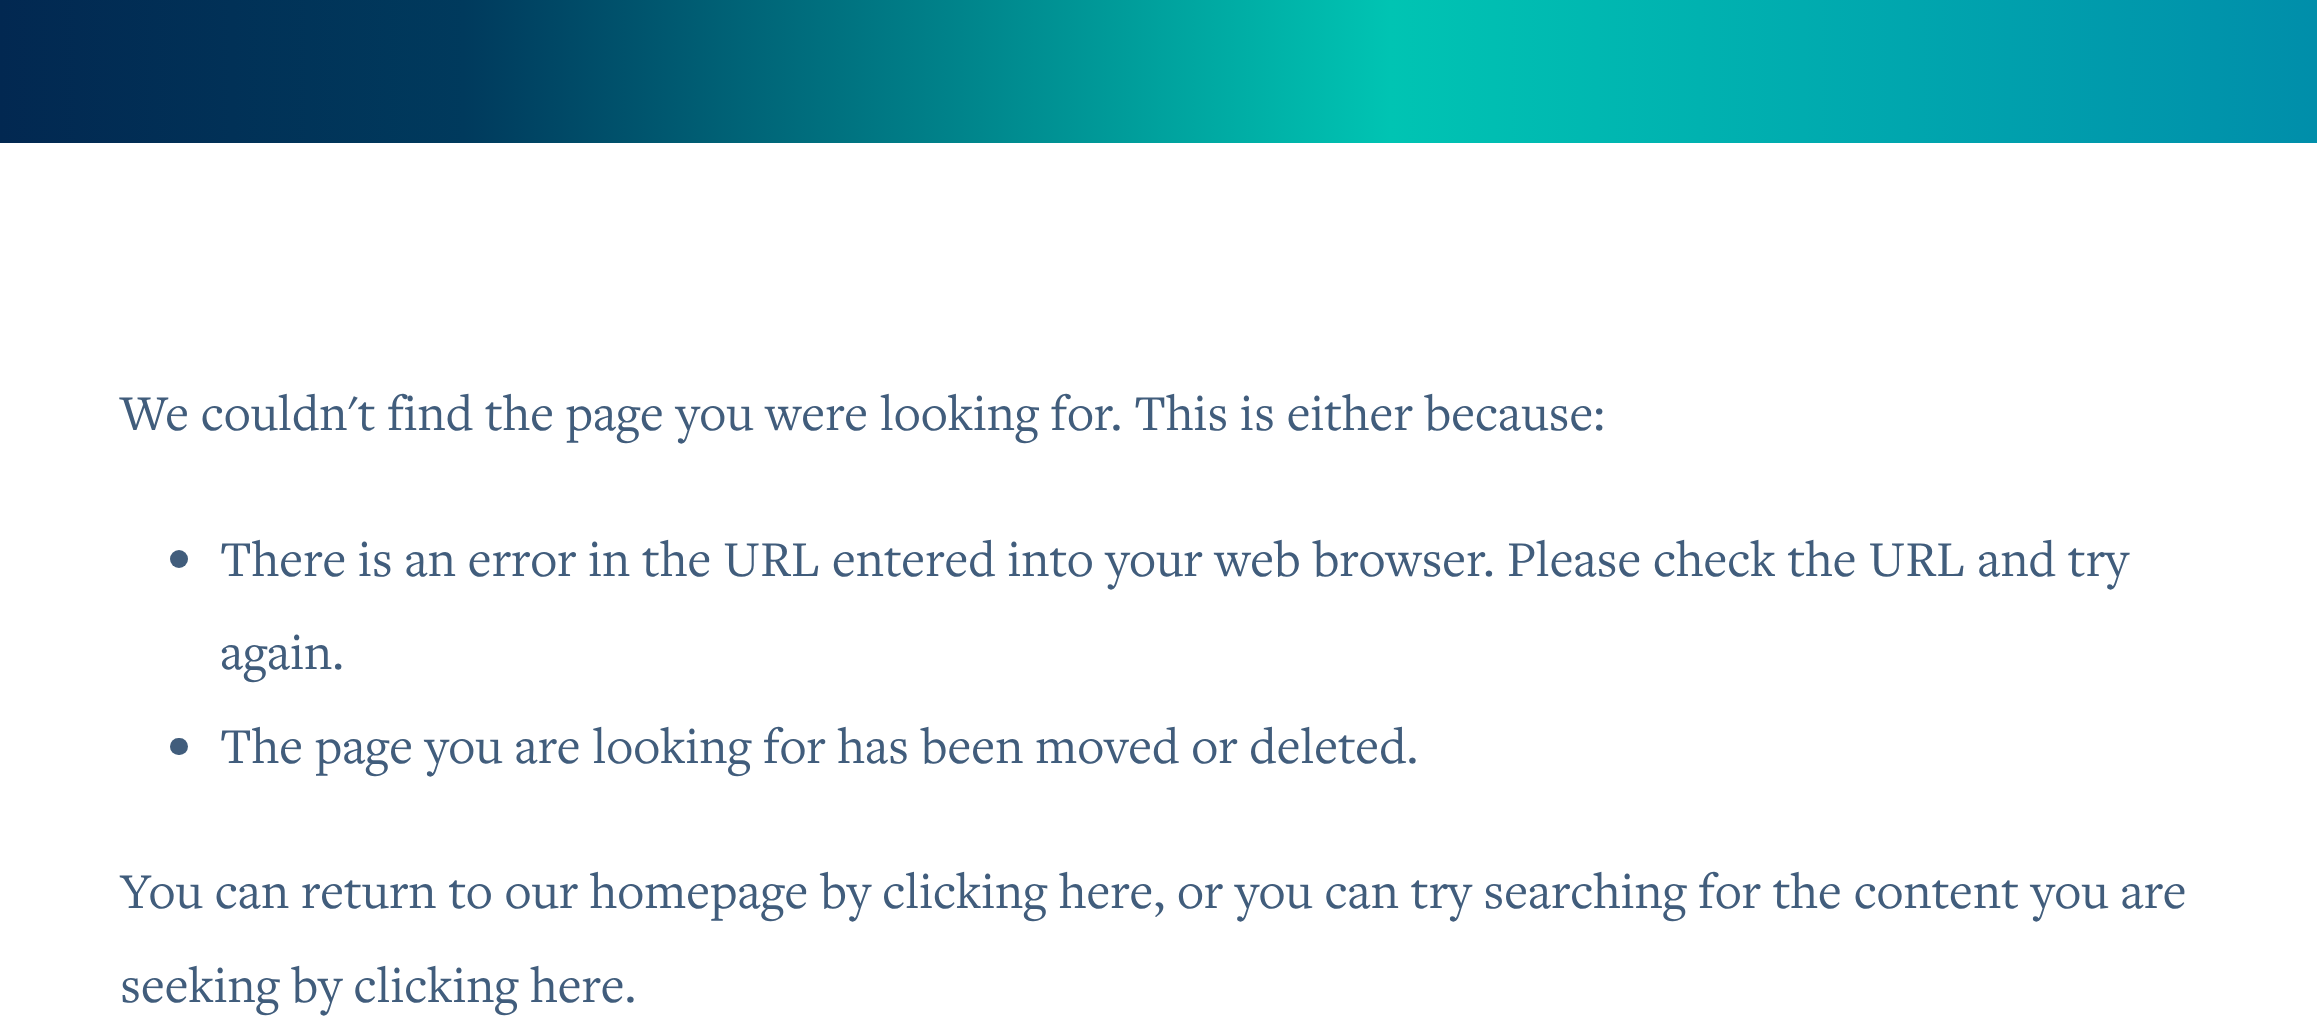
async function draw(canvas) {
	canvas.width = 2317;
	canvas.height = 1019;
	const c = canvas.getContext('2d');
	c.miterLimit = 4;
	c.fontKerning = 'normal';
	let gradient;

	c.fillStyle = '#fff';
	c.fillRect(0, 0, 2317, 1019);
	gradient = c.createLinearGradient(0, 71, 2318, 71);
	gradient.addColorStop(0, '#022851');
	gradient.addColorStop(0.2, '#003a5d');
	gradient.addColorStop(0.6, '#00c4b3');
	gradient.addColorStop(1, '#008eaa');
	c.fillStyle = gradient;
	c.fillRect(0, 0, 2317, 143);
	c.font = '52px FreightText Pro';
	c.fillStyle = '#415d7c';
	c.fillText('We couldn\'t find the page you were looking for. This is either because:', 120, 430);
	c.beginPath();
	c.arc(179, 559, 9, 0, 2 * Math.PI);
	c.fill();
	c.fillText('There is an error in the URL entered into your web browser. Please check the URL and try', 220, 576);
	c.fillText('again.', 220, 669);
	c.beginPath();
	c.roundRect(170, 738, 18, 17, 8.5);
	c.fill();
	for (const [text, x, y] of [
		['The page you are looking for has been moved or deleted.', 220, 763],
		['You can return to our homepage by clicking here, or you can try searching for the content you are', 120, 908],
		['seeking by clicking here.', 120, 1002],
	]) {
		c.fillText(text, x, y);
	}
}

draw(document.querySelector('canvas'));
